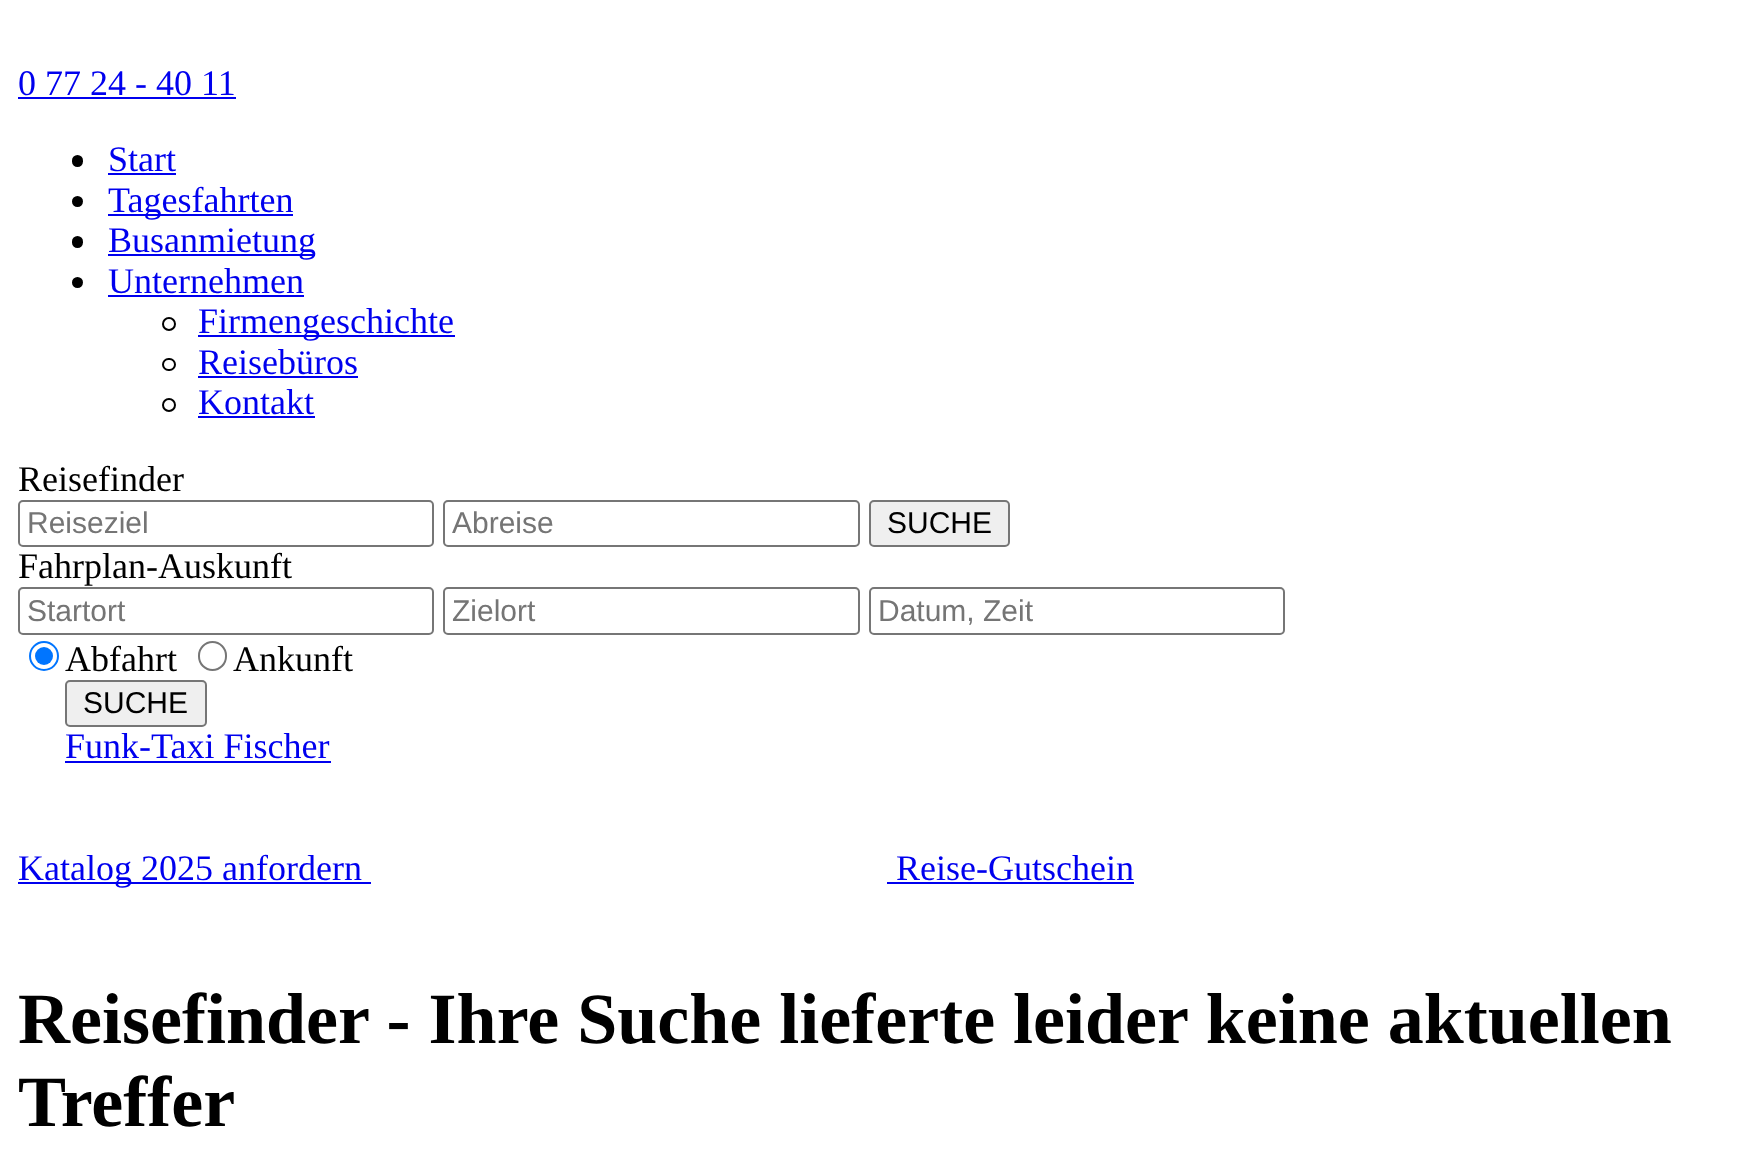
async function draw(canvas) {
	canvas.width = 1738;
	canvas.height = 1152;
	const c = canvas.getContext('2d');
	c.miterLimit = 4;
	c.fontKerning = 'normal';

	c.fillStyle = '#fff';
	c.fillRect(0, 0, 1738, 1152);
	c.font = '36px Liberation Serif';
	c.fillStyle = '#00e';
	c.fillText('0 77 24 - 40 11', 18, 95);
	c.fillRect(18, 97, 218, 2);
	c.fillStyle = '#000';
	c.beginPath();
	c.roundRect(72, 155, 11, 12, 5.5);
	c.fill();
	c.fillStyle = '#00e';
	c.fillText('Start', 108, 171);
	c.fillRect(108, 173, 68, 2);
	c.fillStyle = '#000';
	c.beginPath();
	c.arc(77.5, 201.5, 5.5, 0, 2 * Math.PI);
	c.fill();
	c.fillStyle = '#00e';
	c.fillRect(108, 214, 185, 2);
	c.fillText('Tagesfahrten', 108, 212);
	c.fillStyle = '#000';
	c.beginPath();
	c.roundRect(72, 236, 11, 12, 5.5);
	c.fill();
	c.fillStyle = '#00e';
	c.fillRect(108, 254, 207, 2);
	c.fillText('Busanmietung', 108, 252);
	c.fillStyle = '#000';
	c.beginPath();
	c.arc(77.5, 282.5, 5.5, 0, 2 * Math.PI);
	c.fill();
	c.fillStyle = '#00e';
	c.fillText('Unternehmen', 108, 293);
	c.fillRect(108, 295, 196, 2);
	c.beginPath();
	c.arc(169, 324, 6, 0, 2 * Math.PI);
	c.strokeStyle = '#000';
	c.lineWidth = 2;
	c.stroke();
	c.fillRect(198, 335, 257, 2);
	c.fillText('Firmengeschichte', 198, 333);
	c.beginPath();
	c.roundRect(163, 359, 12, 11, 5.5);
	c.stroke();
	c.fillText('Reisebüros', 198, 374);
	c.fillRect(198, 376, 160, 2);
	c.beginPath();
	c.arc(169, 405, 6, 0, 2 * Math.PI);
	c.stroke();
	c.fillText('Kontakt', 198, 414);
	c.fillRect(198, 416, 117, 2);
	c.fillStyle = '#000';
	c.fillText('Reisefinder', 18, 491);
	c.beginPath();
	c.roundRect(19, 501, 414, 45, 4);
	c.strokeStyle = '#767676';
	c.stroke();
	c.font = '30px Liberation Sans';
	c.fillStyle = '#757575';
	c.fillText('Reiseziel', 27, 533);
	c.beginPath();
	c.roundRect(444, 501, 415, 45, 4);
	c.stroke();
	c.fillText('Abreise', 452, 533);
	c.fillStyle = '#efefef';
	c.beginPath();
	c.roundRect(870, 501, 139, 45, 4);
	c.fill();
	c.stroke();
	c.fillStyle = '#000';
	c.fillText('SUCHE', 887, 533);
	c.font = '36px Liberation Serif';
	c.fillText('Fahrplan-Auskunft', 18, 578);
	c.beginPath();
	c.roundRect(19, 588, 414, 46, 4);
	c.stroke();
	c.font = '30px Liberation Sans';
	c.fillStyle = '#757575';
	c.fillText('Startort', 27, 621);
	c.beginPath();
	c.roundRect(444, 588, 415, 46, 4);
	c.stroke();
	c.fillText('Zielort', 452, 621);
	c.beginPath();
	c.roundRect(870, 588, 414, 46, 4);
	c.stroke();
	c.fillText('Datum, Zeit', 878, 621);
	c.beginPath();
	c.arc(44, 656, 14, 0, 2 * Math.PI);
	c.strokeStyle = '#0075ff';
	c.stroke();
	c.fillStyle = '#0075ff';
	c.beginPath();
	c.arc(44, 656, 9, 0, 2 * Math.PI);
	c.fill();
	c.font = '36px Liberation Serif';
	c.fillStyle = '#000';
	c.fillText('Abfahrt', 65, 671);
	c.beginPath();
	c.roundRect(199, 642, 27, 28, 13.5);
	c.strokeStyle = '#767676';
	c.stroke();
	c.fillText('Ankunft', 233, 671);
	c.fillStyle = '#efefef';
	c.beginPath();
	c.roundRect(66, 681, 140, 45, 4);
	c.fill();
	c.stroke();
	c.font = '30px Liberation Sans';
	c.fillStyle = '#000';
	c.fillText('SUCHE', 83, 713);
	c.font = '36px Liberation Serif';
	c.fillStyle = '#00e';
	c.fillText('Funk-Taxi Fischer', 65, 758);
	c.fillRect(65, 761, 266, 2);
	c.fillRect(18, 882, 353, 2);
	c.fillText('Katalog 2025 anfordern', 18, 880);
	c.fillRect(887, 882, 247, 2);
	c.fillText('Reise-Gutschein', 896, 880);
	c.font = 'bold 72px Liberation Serif';
	c.fillStyle = '#000';
	c.fillText('Reisefinder - Ihre Suche lieferte leider keine aktuellen', 18, 1043);
	c.fillText('Treffer', 18, 1126);
}

draw(document.querySelector('canvas'));
